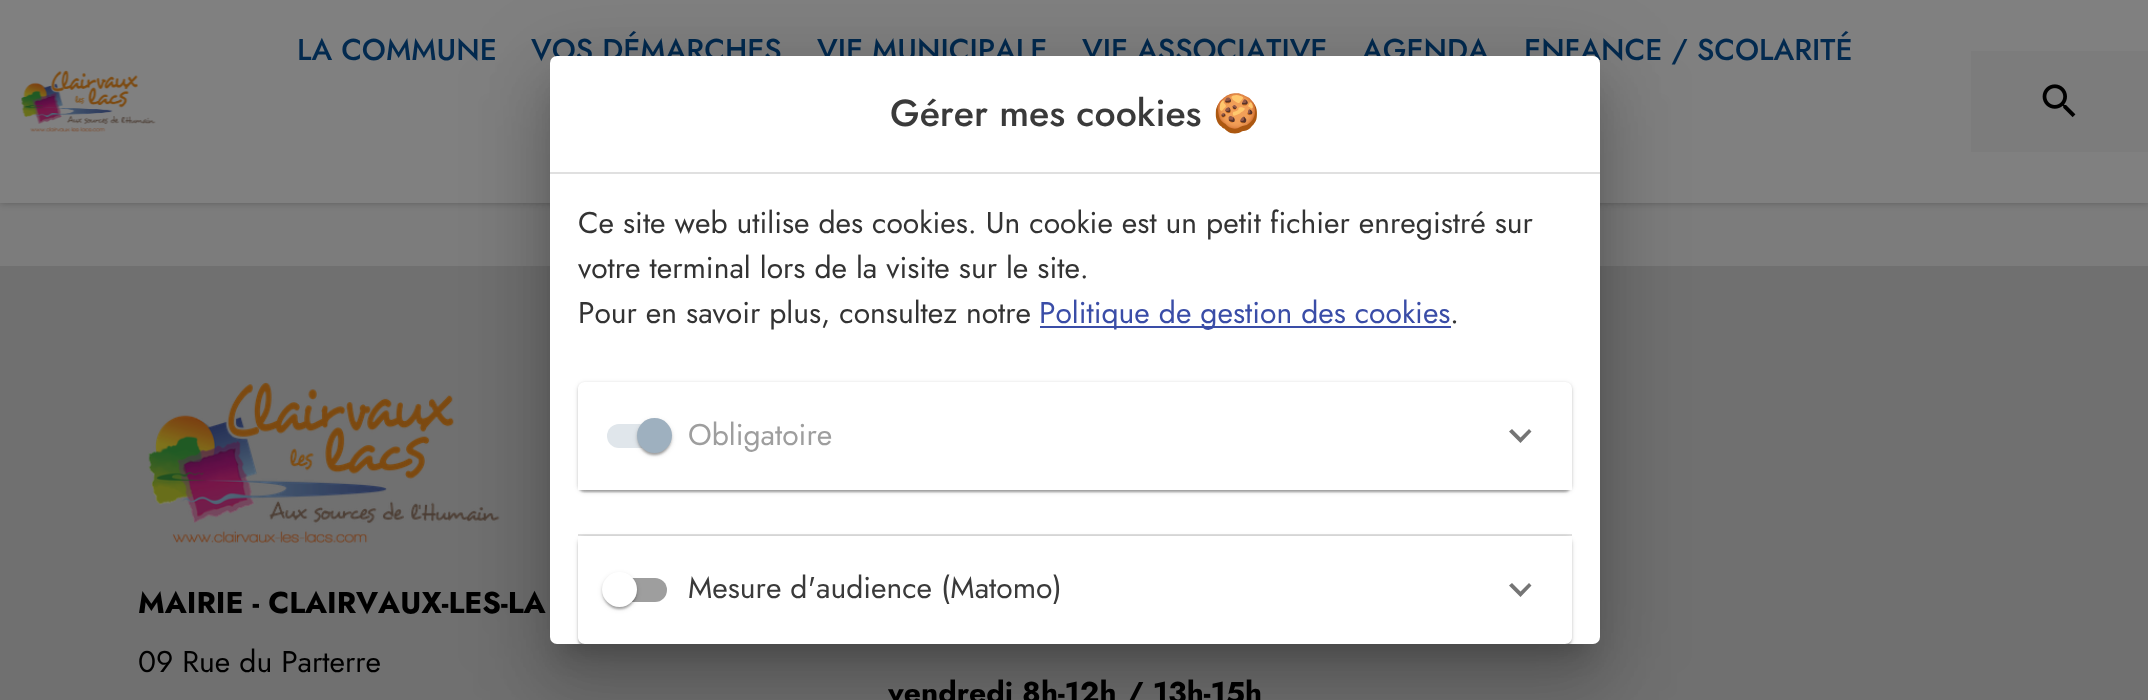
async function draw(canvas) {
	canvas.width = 2148;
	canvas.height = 700;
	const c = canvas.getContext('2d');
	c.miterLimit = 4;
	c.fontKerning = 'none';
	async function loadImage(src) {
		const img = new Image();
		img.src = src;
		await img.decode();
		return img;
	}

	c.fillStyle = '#7c7c7c';
	c.fillRect(0, 0, 2148, 700);
	c.fillStyle = '#00000040';
	c.filter = 'blur(3.5px)';
	c.beginPath();
	c.rect(0, 0, 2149, 203);
	c.fill();
	c.filter = 'none';
	c.fillStyle = '#808080';
	c.fillRect(0, 0, 2148, 203);
	c.font = '500 30px Jost';
	c.fillStyle = '#032a4f';
	for (const [text, x, y] of [
		['LA COMMUNE', 297, 60],
		['VOS DÉMARCHES', 531, 60],
		['VIE MUNICIPALE', 817, 60],
		['VIE ASSOCIATIVE', 1082, 60],
		['AGENDA', 1362, 60],
		['ENFANCE / SCOLARITÉ', 1524, 60],
	]) {
		c.fillText(text, x, y);
	}
	c.drawImage(await loadImage('img1.png'), 21, 70, 135, 62);
	c.fillStyle = '#7c7c7c';
	c.fillRect(1971, 51, 177, 101);
	c.drawImage(await loadImage('img2.png'), 2042, 84, 34, 34);
	c.fillStyle = '#707070';
	c.fillRect(0, 266, 2148, 434);
	c.drawImage(await loadImage('img3.png'), 148, 382, 352, 161);
	c.font = 'bold 30px Jost';
	c.fillStyle = '#000';
	c.fillText('MAIRIE - CLAIRVAUX-LES-LA', 138, 613);
	c.font = '30px Jost';
	c.fillText('09 Rue du Parterre', 138, 672);
	c.font = 'bold 30px Jost';
	c.fillText('vendredi 8h-12h / 13h-15h', 888, 703);
	c.fillStyle = '#0000001f';
	c.filter = 'blur(40px)';
	c.beginPath();
	c.roundRect(536, 58, 1078, 616, 21);
	c.fill();
	c.filter = 'none';
	c.fillStyle = '#00000024';
	c.filter = 'blur(33px)';
	c.beginPath();
	c.roundRect(544, 93, 1061, 598, 12);
	c.fill();
	c.filter = 'none';
	c.fillStyle = '#00000033';
	c.filter = 'blur(13px)';
	c.beginPath();
	c.rect(562, 88, 1025, 563);
	c.fill();
	c.filter = 'none';
	c.fillStyle = '#fff';
	c.beginPath();
	c.roundRect(550, 56, 1050, 588, 7);
	c.fill();
	c.font = '500 37.5px Jost';
	c.fillStyle = '#3a3a3a';
	c.fillText('Gérer mes cookies', 890, 126);
	c.font = '37.5px Noto Color Emoji';
	c.fillText('🍪', 1213, 126);
	c.fillStyle = '#e0e0e0';
	c.fillRect(550, 172, 1050, 2);
	c.font = '30px Jost';
	c.fillStyle = '#333';
	for (const [text, x, y] of [
		['Ce site web utilise des cookies. Un cookie est un petit fichier enregistré sur', 578, 233],
		['votre terminal lors de la visite sur le site.', 578, 278],
		['Pour en savoir plus, consultez notre', 578, 323],
	]) {
		c.fillText(text, x, y);
	}
	c.fillStyle = '#3a4da7';
	c.fillRect(1040, 326, 411, 2);
	c.fillText('Politique de gestion des cookies', 1039, 323);
	c.fillStyle = '#333';
	c.fillText('.', 1450, 323);
	c.save();
	c.beginPath();
	c.moveTo(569, 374);
	c.lineTo(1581, 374);
	c.lineTo(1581, 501);
	c.lineTo(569, 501);
	c.closePath();
	c.moveTo(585, 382);
	c.lineTo(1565, 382);
	c.bezierCurveTo(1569, 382, 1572, 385, 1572, 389);
	c.lineTo(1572, 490);
	c.lineTo(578, 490);
	c.lineTo(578, 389);
	c.bezierCurveTo(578, 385, 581, 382, 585, 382);
	c.closePath();
	c.clip('evenodd');
	c.fillStyle = '#0000001f';
	c.filter = 'blur(2.5px)';
	c.beginPath();
	c.roundRect(578, 383, 994, 109, 7);
	c.fill();
	c.filter = 'none';
	c.restore();
	c.save();
	c.beginPath();
	c.moveTo(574, 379);
	c.lineTo(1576, 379);
	c.lineTo(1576, 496);
	c.lineTo(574, 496);
	c.closePath();
	c.moveTo(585, 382);
	c.lineTo(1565, 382);
	c.bezierCurveTo(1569, 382, 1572, 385, 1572, 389);
	c.lineTo(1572, 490);
	c.lineTo(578, 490);
	c.lineTo(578, 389);
	c.bezierCurveTo(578, 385, 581, 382, 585, 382);
	c.closePath();
	c.clip('evenodd');
	c.fillStyle = '#00000024';
	c.filter = 'blur(1px)';
	c.beginPath();
	c.roundRect(578, 383, 994, 109, 7);
	c.fill();
	c.filter = 'none';
	c.restore();
	c.save();
	c.beginPath();
	c.rect(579, 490, 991, 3);
	c.clip();
	c.fillStyle = '#00000033';
	c.filter = 'blur(1px)';
	c.beginPath();
	c.roundRect(579, 387, 991, 105, 5);
	c.fill();
	c.filter = 'none';
	c.restore();
	c.fillStyle = '#e0e6eb';
	c.beginPath();
	c.roundRect(607, 424, 60, 24, 12);
	c.fill();
	c.fillStyle = '#0000001f';
	c.filter = 'blur(2.5px)';
	c.beginPath();
	c.roundRect(637, 420, 35, 35, 17.5);
	c.fill();
	c.filter = 'none';
	c.fillStyle = '#00000024';
	c.filter = 'blur(1px)';
	c.beginPath();
	c.roundRect(637, 420, 35, 35, 17.5);
	c.fill();
	c.filter = 'none';
	c.fillStyle = '#00000033';
	c.filter = 'blur(1px)';
	c.beginPath();
	c.roundRect(639, 424, 31, 31, 15.5);
	c.fill();
	c.filter = 'none';
	c.fillStyle = '#9eb0bf';
	c.beginPath();
	c.arc(654.5, 435.5, 17.5, 0, 2 * Math.PI);
	c.fill();
	c.fillStyle = '#9e9e9e';
	c.fillText('Obligatoire', 688, 445);
	c.fillStyle = '#757575';
	c.beginPath();
	c.moveTo(1529, 429);
	c.lineTo(1520.5, 437.5);
	c.lineTo(1512, 429);
	c.lineTo(1509, 431.5);
	c.lineTo(1520.5, 443);
	c.lineTo(1531.5, 431.5);
	c.closePath();
	c.fill();
	c.save();
	c.beginPath();
	c.roundRect(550, 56, 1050, 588, 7);
	c.clip();
	c.beginPath();
	c.moveTo(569, 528);
	c.lineTo(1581, 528);
	c.lineTo(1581, 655);
	c.lineTo(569, 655);
	c.closePath();
	c.moveTo(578, 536);
	c.lineTo(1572, 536);
	c.lineTo(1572, 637);
	c.bezierCurveTo(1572, 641, 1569, 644, 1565, 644);
	c.lineTo(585, 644);
	c.bezierCurveTo(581, 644, 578, 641, 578, 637);
	c.closePath();
	c.clip('evenodd');
	c.fillStyle = '#0000001f';
	c.filter = 'blur(2.5px)';
	c.beginPath();
	c.roundRect(578, 537, 994, 109, 7);
	c.fill();
	c.filter = 'none';
	c.restore();
	c.save();
	c.beginPath();
	c.roundRect(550, 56, 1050, 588, 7);
	c.clip();
	c.beginPath();
	c.moveTo(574, 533);
	c.lineTo(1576, 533);
	c.lineTo(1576, 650);
	c.lineTo(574, 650);
	c.closePath();
	c.moveTo(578, 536);
	c.lineTo(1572, 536);
	c.lineTo(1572, 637);
	c.bezierCurveTo(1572, 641, 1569, 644, 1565, 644);
	c.lineTo(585, 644);
	c.bezierCurveTo(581, 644, 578, 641, 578, 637);
	c.closePath();
	c.clip('evenodd');
	c.fillStyle = '#00000024';
	c.filter = 'blur(1px)';
	c.beginPath();
	c.roundRect(578, 537, 994, 109, 7);
	c.fill();
	c.filter = 'none';
	c.restore();
	c.save();
	c.beginPath();
	c.roundRect(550, 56, 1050, 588, 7);
	c.clip();
	c.beginPath();
	c.moveTo(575, 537);
	c.lineTo(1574, 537);
	c.lineTo(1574, 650);
	c.lineTo(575, 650);
	c.closePath();
	c.moveTo(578, 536);
	c.lineTo(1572, 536);
	c.lineTo(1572, 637);
	c.bezierCurveTo(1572, 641, 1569, 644, 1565, 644);
	c.lineTo(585, 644);
	c.bezierCurveTo(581, 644, 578, 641, 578, 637);
	c.closePath();
	c.clip('evenodd');
	c.fillStyle = '#00000033';
	c.filter = 'blur(1px)';
	c.beginPath();
	c.roundRect(579, 541, 991, 105, 5);
	c.fill();
	c.filter = 'none';
	c.restore();
	c.fillStyle = '#0000001f';
	c.fillRect(578, 534, 994, 2);
	c.fillStyle = '#9e9e9e';
	c.beginPath();
	c.roundRect(607, 578, 60, 24, 12);
	c.fill();
	c.fillStyle = '#0000001f';
	c.filter = 'blur(2.5px)';
	c.beginPath();
	c.roundRect(602, 574, 35, 35, 17.5);
	c.fill();
	c.filter = 'none';
	c.fillStyle = '#00000024';
	c.filter = 'blur(1px)';
	c.beginPath();
	c.roundRect(602, 574, 35, 35, 17.5);
	c.fill();
	c.filter = 'none';
	c.fillStyle = '#00000033';
	c.filter = 'blur(1px)';
	c.beginPath();
	c.roundRect(604, 578, 31, 31, 15.5);
	c.fill();
	c.filter = 'none';
	c.fillStyle = '#fff';
	c.beginPath();
	c.arc(619.5, 589.5, 17.5, 0, 2 * Math.PI);
	c.fill();
	c.fillStyle = '#3a3a3a';
	c.fillText('Mesure d\'audience (Matomo)', 688, 598);
	c.fillStyle = '#757575';
	c.beginPath();
	c.moveTo(1529, 583);
	c.lineTo(1520.5, 591.5);
	c.lineTo(1512, 583);
	c.lineTo(1509, 585.5);
	c.lineTo(1520.5, 597);
	c.lineTo(1531.5, 585.5);
	c.closePath();
	c.fill();
}

draw(document.querySelector('canvas'));
